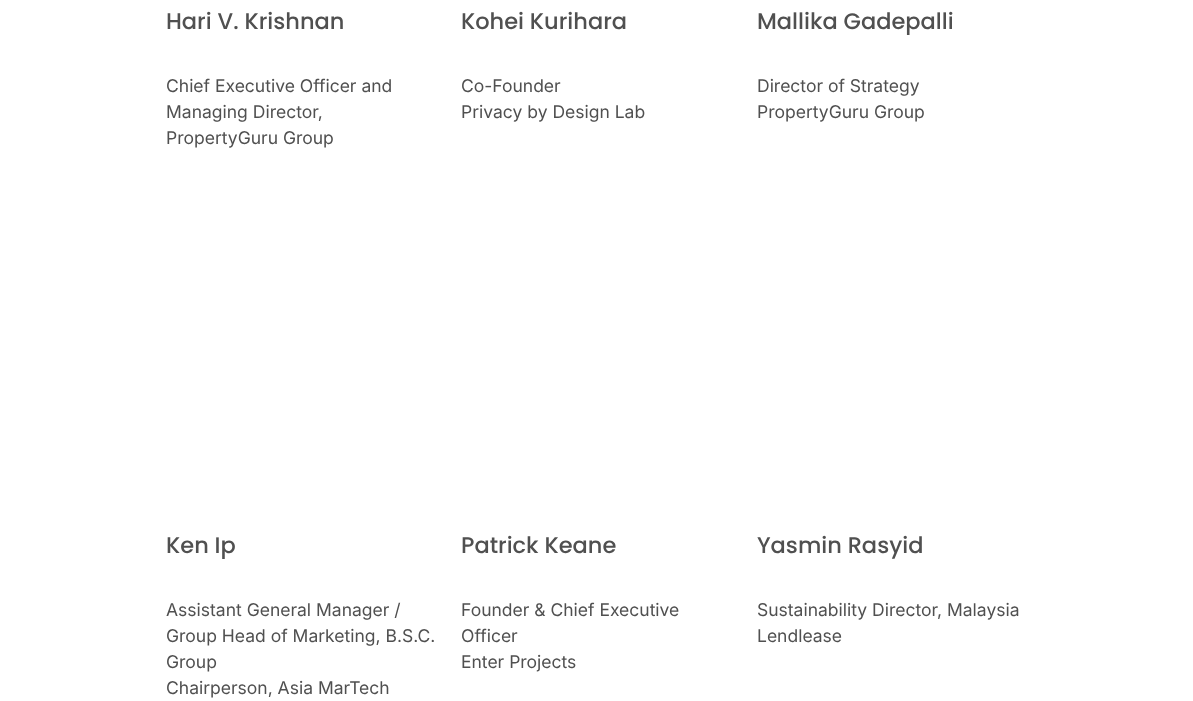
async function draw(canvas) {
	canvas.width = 1193;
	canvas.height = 701;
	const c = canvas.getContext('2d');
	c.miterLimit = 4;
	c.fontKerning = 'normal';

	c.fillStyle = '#fff';
	c.fillRect(0, 0, 1193, 701);
	c.font = '500 22.5px Poppins';
	c.fillStyle = '#505050';
	c.fillText('Hari V. Krishnan', 166, 29);
	c.font = '17.5px Inter';
	for (const [text, x, y] of [
		['Chief Executive Officer and', 166, 92],
		['Managing Director,', 166, 118],
		['PropertyGuru Group', 166, 144],
	]) {
		c.fillText(text, x, y);
	}
	c.font = '500 22.5px Poppins';
	c.fillText('Kohei Kurihara', 461, 29);
	c.font = '17.5px Inter';
	c.fillText('Co-Founder', 461, 92);
	c.fillText('Privacy by Design Lab', 461, 118);
	c.font = '500 22.5px Poppins';
	c.fillText('Mallika Gadepalli', 757, 29);
	c.font = '17.5px Inter';
	c.fillText('Director of Strategy', 757, 92);
	c.fillText('PropertyGuru Group', 757, 118);
	c.font = '500 22.5px Poppins';
	c.fillText('Ken Ip', 166, 553);
	c.font = '17.5px Inter';
	for (const [text, x, y] of [
		['Assistant General Manager /', 166, 616],
		['Group Head of Marketing, B.S.C.', 166, 642],
		['Group', 166, 668],
		['Chairperson, Asia MarTech', 166, 694],
	]) {
		c.fillText(text, x, y);
	}
	c.font = '500 22.5px Poppins';
	c.fillText('Patrick Keane', 461, 553);
	c.font = '17.5px Inter';
	for (const [text, x, y] of [
		['Founder & Chief Executive', 461, 616],
		['Officer', 461, 642],
		['Enter Projects', 461, 668],
	]) {
		c.fillText(text, x, y);
	}
	c.font = '500 22.5px Poppins';
	c.fillText('Yasmin Rasyid', 757, 553);
	c.font = '17.5px Inter';
	c.fillText('Sustainability Director, Malaysia', 757, 616);
	c.fillText('Lendlease', 757, 642);
}

draw(document.querySelector('canvas'));
